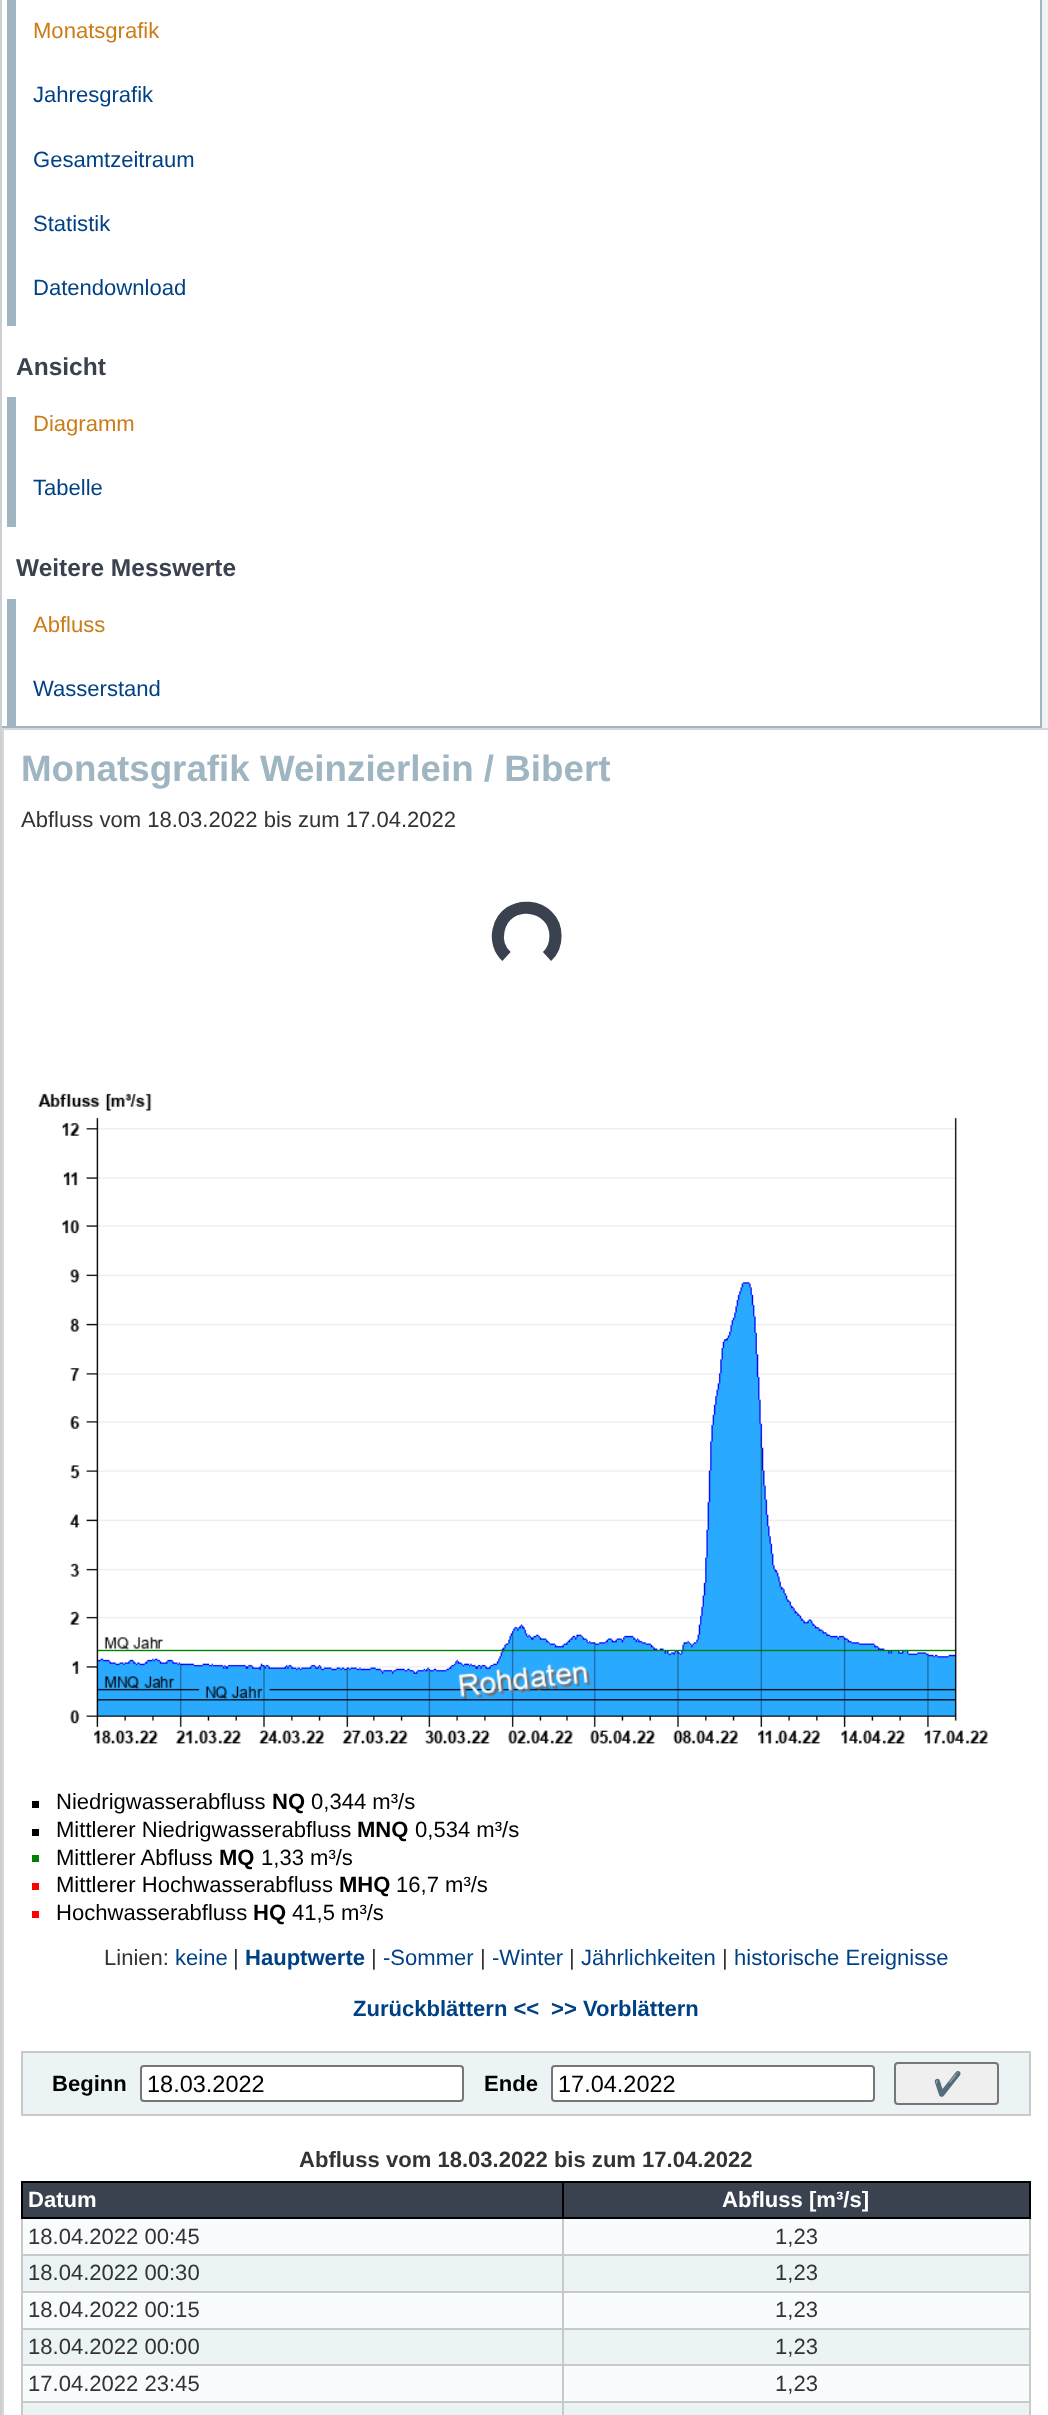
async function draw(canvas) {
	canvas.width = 1048;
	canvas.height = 2415;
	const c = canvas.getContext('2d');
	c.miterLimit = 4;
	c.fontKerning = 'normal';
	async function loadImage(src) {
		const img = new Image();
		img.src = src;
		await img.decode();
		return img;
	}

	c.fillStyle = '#cecfd4';
	c.fillRect(0, 0, 1048, 2415);
	for (const [x, y, w, h, color] of [
		[1042, 0, 6, 728, '#f2f2f2'],
		[2, 0, 1038, 726, '#fff'],
		[1040, 0, 2, 728, '#9fb5c1'],
		[2, 726, 1039, 2, '#9fb5c1'],
		[7, 0, 9, 326, '#9fb5c1'],
	]) {
		c.fillStyle = color;
		c.fillRect(x, y, w, h);
	}
	c.font = '22.05px Liberation Sans';
	c.fillStyle = '#cc7b17';
	c.fillText('Monatsgrafik', 33, 38);
	c.fillStyle = '#004185';
	for (const [text, x, y] of [
		['Jahresgrafik', 33, 102],
		['Gesamtzeitraum', 33, 167],
		['Statistik', 33, 231],
		['Datendownload', 33, 295],
	]) {
		c.fillText(text, x, y);
	}
	c.font = 'bold 24.5px Liberation Sans';
	c.fillStyle = '#3b424f';
	c.fillText('Ansicht', 16, 375);
	c.fillStyle = '#9fb5c1';
	c.fillRect(7, 397, 9, 130);
	c.font = '22.05px Liberation Sans';
	c.fillStyle = '#cc7b17';
	c.fillText('Diagramm', 33, 431);
	c.fillStyle = '#004185';
	c.fillText('Tabelle', 33, 495);
	c.font = 'bold 24.5px Liberation Sans';
	c.fillStyle = '#3b424f';
	c.fillText('Weitere Messwerte', 16, 576);
	c.fillStyle = '#9fb5c1';
	c.fillRect(7, 599, 9, 127);
	c.font = '22.05px Liberation Sans';
	c.fillStyle = '#cc7b17';
	c.fillText('Abfluss', 33, 632);
	c.fillStyle = '#004185';
	c.fillText('Wasserstand', 33, 696);
	c.fillStyle = '#fff';
	c.beginPath();
	c.rect(3, 729, 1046, 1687);
	c.fill();
	c.strokeStyle = '#d7d7d7';
	c.lineWidth = 2;
	c.stroke();
	c.font = 'bold 36.75px Liberation Sans';
	c.fillStyle = '#9fb5c1';
	c.fillText('Monatsgrafik Weinzierlein / Bibert', 21, 781);
	c.font = '22.05px Liberation Sans';
	c.fillStyle = '#333';
	c.fillText('Abfluss vom 18.03.2022 bis zum 17.04.2022', 21, 827);
	c.beginPath();
	c.moveTo(506.5, 956.5);
	c.bezierCurveTo(499.5, 950, 496.5, 940, 498.5, 930.5);
	c.bezierCurveTo(505, 897, 555.5, 902, 555.5, 936);
	c.bezierCurveTo(555.5, 944, 552.5, 951.5, 547, 956.5);
	c.strokeStyle = '#3b424f';
	c.lineWidth = 12.2;
	c.stroke();
	c.drawImage(await loadImage('img1.png'), 38, 1093, 950, 651);
	c.fillStyle = '#000';
	c.fillRect(32, 1801, 7, 7);
	c.fillText('Niedrigwasserabfluss', 56, 1809);
	c.font = 'bold 22.05px Liberation Sans';
	c.fillText('NQ', 272, 1809);
	c.font = '22.05px Liberation Sans';
	c.fillText('0,344 m³/s', 311, 1809);
	c.fillRect(32, 1829, 7, 7);
	c.fillText('Mittlerer Niedrigwasserabfluss', 56, 1837);
	c.font = 'bold 22.05px Liberation Sans';
	c.fillText('MNQ', 357, 1837);
	c.font = '22.05px Liberation Sans';
	c.fillText('0,534 m³/s', 415, 1837);
	c.fillStyle = '#008000';
	c.fillRect(32, 1855, 7, 7);
	c.fillStyle = '#000';
	c.fillText('Mittlerer Abfluss', 56, 1865);
	c.font = 'bold 22.05px Liberation Sans';
	c.fillText('MQ', 219, 1865);
	c.font = '22.05px Liberation Sans';
	c.fillText('1,33 m³/s', 261, 1865);
	c.fillStyle = '#f00';
	c.fillRect(32, 1883, 7, 7);
	c.fillStyle = '#000';
	c.fillText('Mittlerer Hochwasserabfluss', 56, 1892);
	c.font = 'bold 22.05px Liberation Sans';
	c.fillText('MHQ', 339, 1892);
	c.font = '22.05px Liberation Sans';
	c.fillText('16,7 m³/s', 396, 1892);
	c.fillStyle = '#f00';
	c.fillRect(32, 1911, 7, 7);
	c.fillStyle = '#000';
	c.fillText('Hochwasserabfluss', 56, 1920);
	c.font = 'bold 22.05px Liberation Sans';
	c.fillText('HQ', 253, 1920);
	c.font = '22.05px Liberation Sans';
	c.fillText('41,5 m³/s', 292, 1920);
	c.fillStyle = '#333';
	c.fillText('Linien:', 104, 1965);
	c.fillStyle = '#004185';
	c.fillText('keine', 175, 1965);
	c.fillStyle = '#333';
	c.fillText('|', 233, 1965);
	c.font = 'bold 22.05px Liberation Sans';
	c.fillStyle = '#004185';
	c.fillText('Hauptwerte', 245, 1965);
	c.font = '22.05px Liberation Sans';
	c.fillStyle = '#333';
	c.fillText('|', 371, 1965);
	c.fillStyle = '#004185';
	c.fillText('-Sommer', 383, 1965);
	c.fillStyle = '#333';
	c.fillText('|', 480, 1965);
	c.fillStyle = '#004185';
	c.fillText('-Winter', 492, 1965);
	c.fillStyle = '#333';
	c.fillText('|', 569, 1965);
	c.fillStyle = '#004185';
	c.fillText('Jährlichkeiten', 581, 1965);
	c.fillStyle = '#333';
	c.fillText('|', 722, 1965);
	c.fillStyle = '#004185';
	c.fillText('historische Ereignisse', 734, 1965);
	c.font = 'bold 22.05px Liberation Sans';
	c.fillText('Zurückblättern <<', 353, 2016);
	c.fillText('>> Vorblättern', 551, 2016);
	c.fillStyle = '#ebf3f5';
	c.beginPath();
	c.rect(22, 2052, 1008, 63);
	c.fill();
	c.strokeStyle = '#c9c9c9';
	c.lineWidth = 2;
	c.stroke();
	c.fillStyle = '#000';
	c.fillText('Beginn', 52, 2091);
	c.fillStyle = '#fff';
	c.beginPath();
	c.roundRect(141, 2066, 322, 35, 3);
	c.fill();
	c.strokeStyle = '#767676';
	c.stroke();
	c.font = '23.5px Liberation Sans';
	c.fillStyle = '#000';
	c.fillText('18.03.2022', 147, 2092);
	c.font = 'bold 22.05px Liberation Sans';
	c.fillText('Ende', 484, 2091);
	c.fillStyle = '#fff';
	c.beginPath();
	c.roundRect(552, 2066, 322, 35, 3);
	c.fill();
	c.stroke();
	c.font = '23.5px Liberation Sans';
	c.fillStyle = '#000';
	c.fillText('17.04.2022', 558, 2092);
	c.fillStyle = '#efefef';
	c.beginPath();
	c.roundRect(895, 2063, 103, 41, 3);
	c.fill();
	c.stroke();
	c.font = '23.5px Noto Color Emoji';
	c.fillStyle = '#000';
	c.fillText('✔️', 933, 2092);
	c.font = 'bold 22.05px Liberation Sans';
	c.fillStyle = '#333';
	c.fillText('Abfluss vom 18.03.2022 bis zum 17.04.2022', 299, 2167);
	for (const [x, y, w, h, color] of [
		[23, 2183, 539, 34, '#3b424f'],
		[562, 2181, 469, 2, '#000'],
		[562, 2254, 469, 2, '#c9c9c9'],
		[562, 2291, 469, 2, '#c9c9c9'],
		[562, 2328, 469, 2, '#c9c9c9'],
		[562, 2364, 469, 2, '#c9c9c9'],
		[562, 2401, 469, 2, '#c9c9c9'],
		[1029, 2401, 2, 14, '#c9c9c9'],
		[1029, 2364, 2, 39, '#c9c9c9'],
		[1029, 2328, 2, 38, '#c9c9c9'],
		[1029, 2291, 2, 38, '#c9c9c9'],
		[1029, 2217, 2, 76, '#c9c9c9'],
		[1029, 2181, 2, 38, '#000'],
		[23, 2219, 1006, 35, '#f8fcfd'],
		[23, 2256, 1006, 35, '#ebf3f5'],
		[23, 2293, 1006, 35, '#f8fcfd'],
		[23, 2330, 1006, 34, '#ebf3f5'],
		[23, 2366, 1006, 35, '#f8fcfd'],
		[23, 2403, 1006, 12, '#ebf3f5'],
		[562, 2401, 2, 14, '#c9c9c9'],
		[21, 2401, 543, 2, '#c9c9c9'],
		[562, 2364, 2, 39, '#c9c9c9'],
		[21, 2364, 543, 2, '#c9c9c9'],
		[562, 2328, 2, 38, '#c9c9c9'],
		[21, 2328, 543, 2, '#c9c9c9'],
		[562, 2291, 2, 38, '#c9c9c9'],
		[21, 2291, 543, 2, '#c9c9c9'],
		[562, 2254, 2, 39, '#c9c9c9'],
		[21, 2254, 543, 2, '#c9c9c9'],
		[562, 2217, 2, 39, '#c9c9c9'],
		[562, 2217, 469, 2, '#000'],
		[562, 2181, 2, 38, '#000'],
		[21, 2181, 543, 2, '#000'],
		[21, 2401, 2, 14, '#c9c9c9'],
		[21, 2364, 2, 39, '#c9c9c9'],
		[21, 2328, 2, 38, '#c9c9c9'],
		[21, 2291, 2, 38, '#c9c9c9'],
		[21, 2217, 2, 76, '#c9c9c9'],
		[21, 2217, 543, 2, '#000'],
		[21, 2181, 2, 38, '#000'],
	]) {
		c.fillStyle = color;
		c.fillRect(x, y, w, h);
	}
	c.fillStyle = '#fff';
	c.fillText('Datum', 28, 2207);
	c.fillStyle = '#3b424f';
	c.fillRect(564, 2183, 465, 34);
	c.fillStyle = '#fff';
	c.fillText('Abfluss [m³/s]', 722, 2207);
	c.font = '22.05px Liberation Sans';
	c.fillStyle = '#333';
	for (const [text, x, y] of [
		['18.04.2022 00:45', 28, 2244],
		['1,23', 775, 2244],
		['18.04.2022 00:30', 28, 2280],
		['1,23', 775, 2280],
		['18.04.2022 00:15', 28, 2317],
		['1,23', 775, 2317],
		['18.04.2022 00:00', 28, 2354],
		['1,23', 775, 2354],
		['17.04.2022 23:45', 28, 2391],
		['1,23', 775, 2391],
	]) {
		c.fillText(text, x, y);
	}
}

draw(document.querySelector('canvas'));
